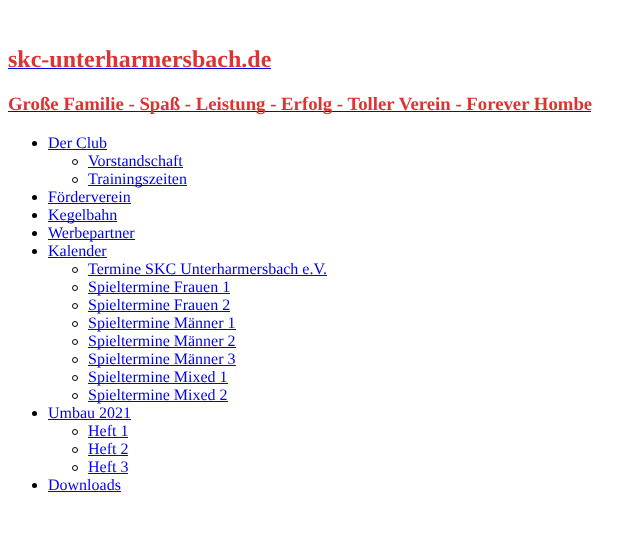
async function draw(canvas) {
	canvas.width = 640;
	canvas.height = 536;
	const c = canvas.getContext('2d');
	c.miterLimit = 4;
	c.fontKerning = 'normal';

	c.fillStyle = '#fff';
	c.fillRect(0, 0, 640, 536);
	c.font = 'bold 24px Liberation Serif';
	c.fillStyle = '#d33';
	c.fillText('skc-unterharmersbach.de', 8, 67);
	c.fillStyle = '#00e';
	c.fillRect(8, 68, 263, 1);
	c.fillRect(8, 111, 583, 1);
	c.font = 'bold 18.75px Liberation Serif';
	c.fillStyle = '#d33';
	c.fillText('Große Familie - Spaß - Leistung - Erfolg - Toller Verein - Forever Hombe', 8, 110);
	c.fillStyle = '#000';
	c.beginPath();
	c.arc(34.5, 143.5, 2.5, 0, 2 * Math.PI);
	c.fill();
	c.font = '16px Liberation Serif';
	c.fillStyle = '#00e';
	c.fillText('Der Club', 48, 148);
	c.fillRect(48, 149, 59, 1);
	c.beginPath();
	c.arc(75, 162, 2.5, 0, 2 * Math.PI);
	c.strokeStyle = '#000';
	c.stroke();
	c.fillText('Vorstandschaft', 88, 166);
	c.fillRect(88, 167, 95, 1);
	c.beginPath();
	c.arc(75, 180, 2.5, 0, 2 * Math.PI);
	c.stroke();
	c.fillRect(88, 185, 99, 1);
	c.fillText('Trainingszeiten', 88, 184);
	c.fillStyle = '#000';
	c.beginPath();
	c.arc(34.5, 197.5, 2.5, 0, 2 * Math.PI);
	c.fill();
	c.fillStyle = '#00e';
	c.fillText('Förderverein', 48, 202);
	c.fillRect(48, 203, 83, 1);
	c.fillStyle = '#000';
	c.beginPath();
	c.arc(34.5, 215.5, 2.5, 0, 2 * Math.PI);
	c.fill();
	c.fillStyle = '#00e';
	c.fillRect(48, 221, 69, 1);
	c.fillText('Kegelbahn', 48, 220);
	c.fillStyle = '#000';
	c.beginPath();
	c.arc(34.5, 233.5, 2.5, 0, 2 * Math.PI);
	c.fill();
	c.fillStyle = '#00e';
	c.fillRect(48, 239, 87, 1);
	c.fillText('Werbepartner', 48, 238);
	c.fillStyle = '#000';
	c.beginPath();
	c.arc(34.5, 251.5, 2.5, 0, 2 * Math.PI);
	c.fill();
	c.fillStyle = '#00e';
	c.fillText('Kalender', 48, 256);
	c.fillRect(48, 257, 59, 1);
	c.beginPath();
	c.arc(75, 270, 2.5, 0, 2 * Math.PI);
	c.stroke();
	c.fillText('Termine SKC Unterharmersbach e.V.', 88, 274);
	c.fillRect(88, 275, 239, 1);
	c.beginPath();
	c.arc(75, 288, 2.5, 0, 2 * Math.PI);
	c.stroke();
	c.fillRect(88, 293, 142, 1);
	c.fillText('Spieltermine Frauen 1', 88, 292);
	c.beginPath();
	c.arc(75, 306, 2.5, 0, 2 * Math.PI);
	c.stroke();
	c.fillRect(88, 311, 142, 1);
	c.fillText('Spieltermine Frauen 2', 88, 310);
	c.beginPath();
	c.arc(75, 324, 2.5, 0, 2 * Math.PI);
	c.stroke();
	c.fillRect(88, 329, 148, 1);
	c.fillText('Spieltermine Männer 1', 88, 328);
	c.beginPath();
	c.arc(75, 342, 2.5, 0, 2 * Math.PI);
	c.stroke();
	c.fillRect(88, 347, 148, 1);
	c.fillText('Spieltermine Männer 2', 88, 346);
	c.beginPath();
	c.arc(75, 360, 2.5, 0, 2 * Math.PI);
	c.stroke();
	c.fillRect(88, 365, 148, 1);
	c.fillText('Spieltermine Männer 3', 88, 364);
	c.beginPath();
	c.arc(75, 378, 2.5, 0, 2 * Math.PI);
	c.stroke();
	c.fillRect(88, 383, 140, 1);
	c.fillText('Spieltermine Mixed 1', 88, 382);
	c.beginPath();
	c.arc(75, 396, 2.5, 0, 2 * Math.PI);
	c.stroke();
	c.fillRect(88, 401, 140, 1);
	c.fillText('Spieltermine Mixed 2', 88, 400);
	c.fillStyle = '#000';
	c.beginPath();
	c.arc(34.5, 413.5, 2.5, 0, 2 * Math.PI);
	c.fill();
	c.fillStyle = '#00e';
	c.fillText('Umbau 2021', 48, 418);
	c.fillRect(48, 419, 83, 1);
	c.beginPath();
	c.arc(75, 432, 2.5, 0, 2 * Math.PI);
	c.stroke();
	c.fillText('Heft 1', 88, 436);
	c.fillRect(88, 437, 40, 1);
	c.beginPath();
	c.arc(75, 450, 2.5, 0, 2 * Math.PI);
	c.stroke();
	c.fillText('Heft 2', 88, 454);
	c.fillRect(88, 455, 40, 1);
	c.beginPath();
	c.arc(75, 468, 2.5, 0, 2 * Math.PI);
	c.stroke();
	c.fillText('Heft 3', 88, 472);
	c.fillRect(88, 473, 40, 1);
	c.fillStyle = '#000';
	c.beginPath();
	c.arc(34.5, 485.5, 2.5, 0, 2 * Math.PI);
	c.fill();
	c.fillStyle = '#00e';
	c.fillText('Downloads', 48, 490);
	c.fillRect(48, 491, 73, 1);
}

draw(document.querySelector('canvas'));
